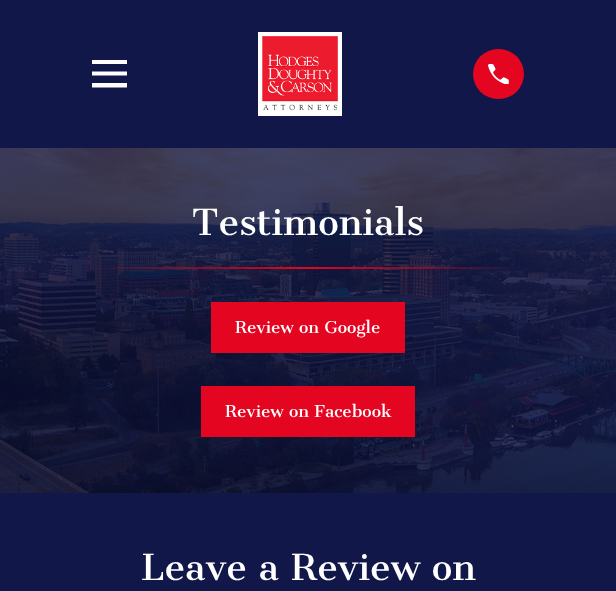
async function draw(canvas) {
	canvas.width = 616;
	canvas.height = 591;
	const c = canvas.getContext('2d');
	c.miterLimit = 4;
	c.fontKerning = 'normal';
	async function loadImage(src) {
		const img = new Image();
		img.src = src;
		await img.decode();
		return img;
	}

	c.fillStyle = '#fff';
	c.fillRect(0, 0, 616, 591);
	c.fillStyle = '#121749';
	c.fillRect(0, 0, 616, 148);
	c.fillStyle = '#fff';
	c.beginPath();
	c.moveTo(92, 60);
	c.lineTo(92, 64);
	c.lineTo(127, 64);
	c.lineTo(127, 60);
	c.closePath();
	c.moveTo(92, 71.5);
	c.lineTo(92, 75.5);
	c.lineTo(127, 75.5);
	c.lineTo(127, 71.5);
	c.closePath();
	c.moveTo(92, 83);
	c.lineTo(92, 87.5);
	c.lineTo(127, 87.5);
	c.lineTo(127, 83);
	c.closePath();
	c.fill();
	c.drawImage(await loadImage('img1.png'), 258, 32, 84, 84);
	c.fillStyle = '#e40520';
	c.beginPath();
	c.roundRect(473, 49, 51, 50, 25);
	c.fill();
	c.drawImage(await loadImage('img2.png'), 488, 64, 21, 20);
	c.drawImage(await loadImage('img3.png'), 0, 148, 616, 345);
	c.font = '35.25px Cantata One';
	c.fillStyle = '#fff';
	c.fillText('Testimonials', 192, 235);
	c.fillStyle = '#e40520';
	c.fillRect(211, 302, 194, 51);
	c.font = '16px Cantata One';
	c.fillStyle = '#fff';
	c.fillText('Review on Google', 235, 333);
	c.fillStyle = '#e40520';
	c.fillRect(201, 386, 214, 51);
	c.fillStyle = '#fff';
	c.fillText('Review on Facebook', 225, 417);
	c.fillStyle = '#121749';
	c.fillRect(0, 493, 616, 98);
	c.font = '35.25px Cantata One';
	c.fillStyle = '#fff';
	c.fillText('Leave a Review on', 141, 580);
}

draw(document.querySelector('canvas'));
